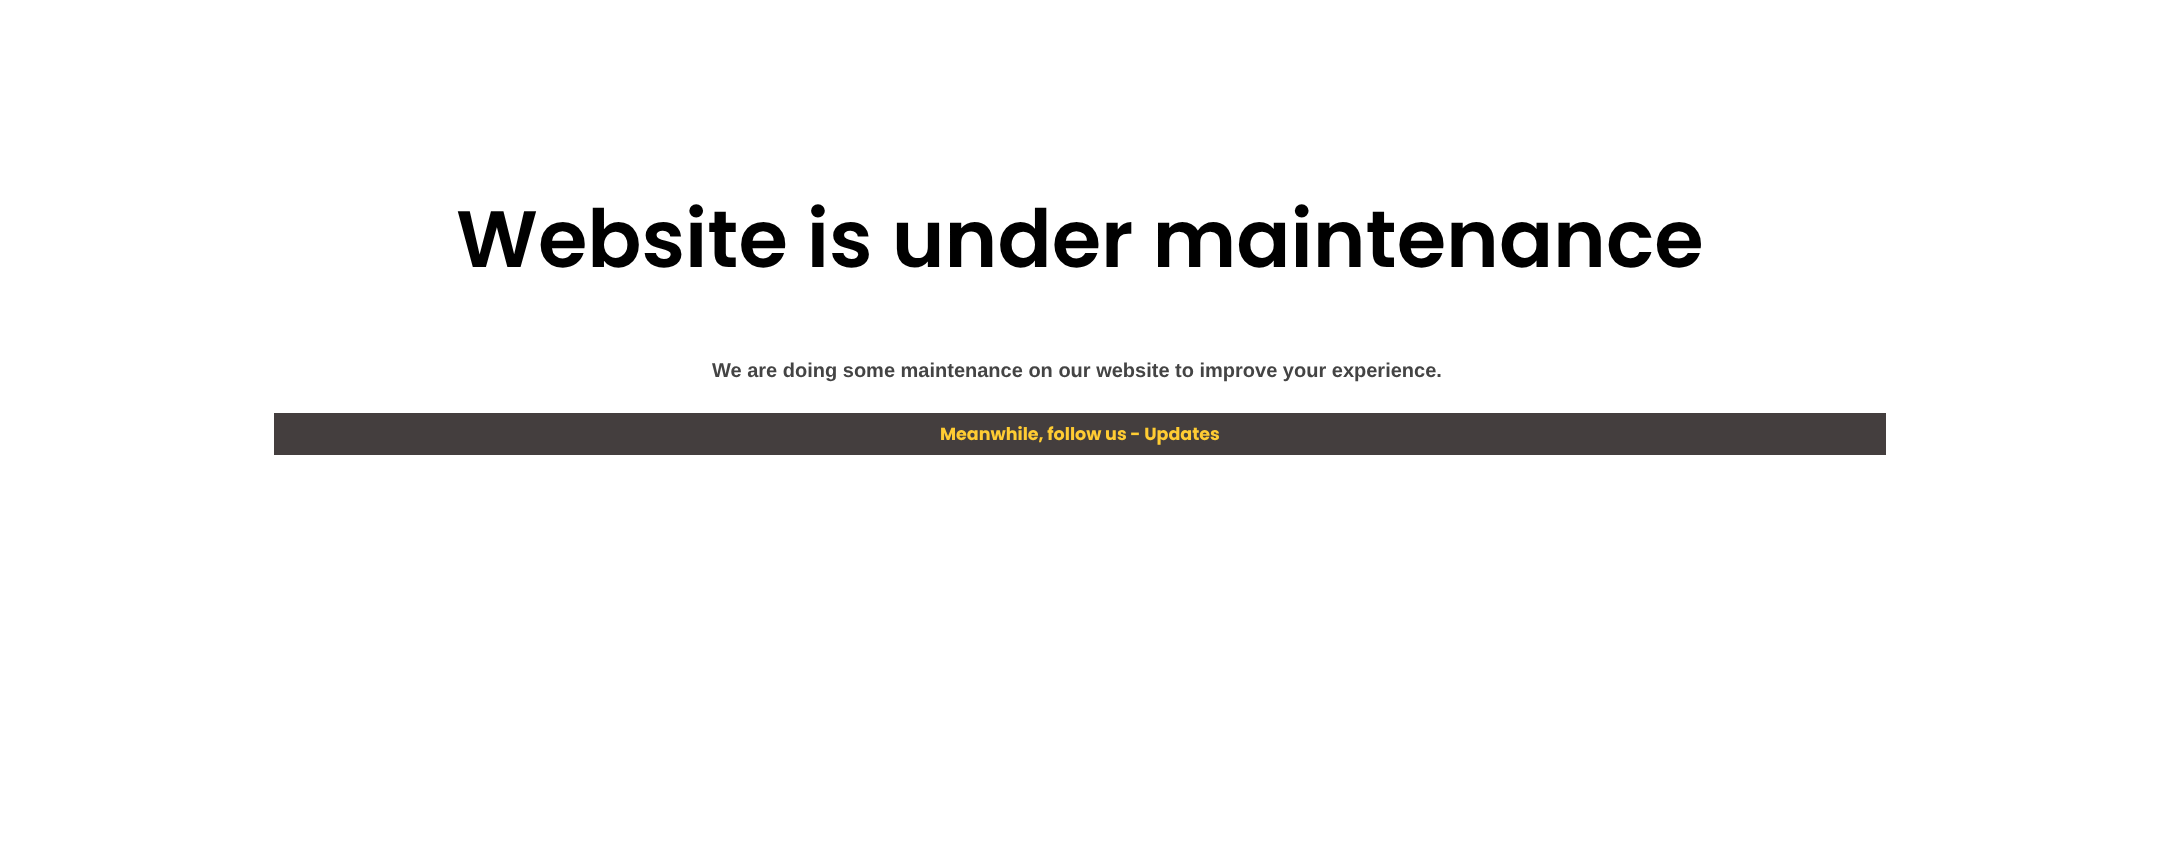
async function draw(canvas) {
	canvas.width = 2159;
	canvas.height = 848;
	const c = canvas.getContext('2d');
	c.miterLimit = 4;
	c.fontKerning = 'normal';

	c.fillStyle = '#fff';
	c.fillRect(0, 0, 2159, 848);
	c.font = '600 80px Poppins';
	c.fillStyle = '#000';
	c.fillText('Website is under maintenance', 456, 267);
	c.font = 'bold 20px Liberation Sans';
	c.fillStyle = '#444';
	c.fillText('We are doing some maintenance on our website to improve your experience.', 712, 377);
	c.fillStyle = '#443e3e';
	c.fillRect(274, 413, 1612, 42);
	c.font = 'bold 17.5px Poppins';
	c.fillStyle = '#fc3';
	c.fillText('Meanwhile, follow us - Updates', 940, 440);
}

draw(document.querySelector('canvas'));
